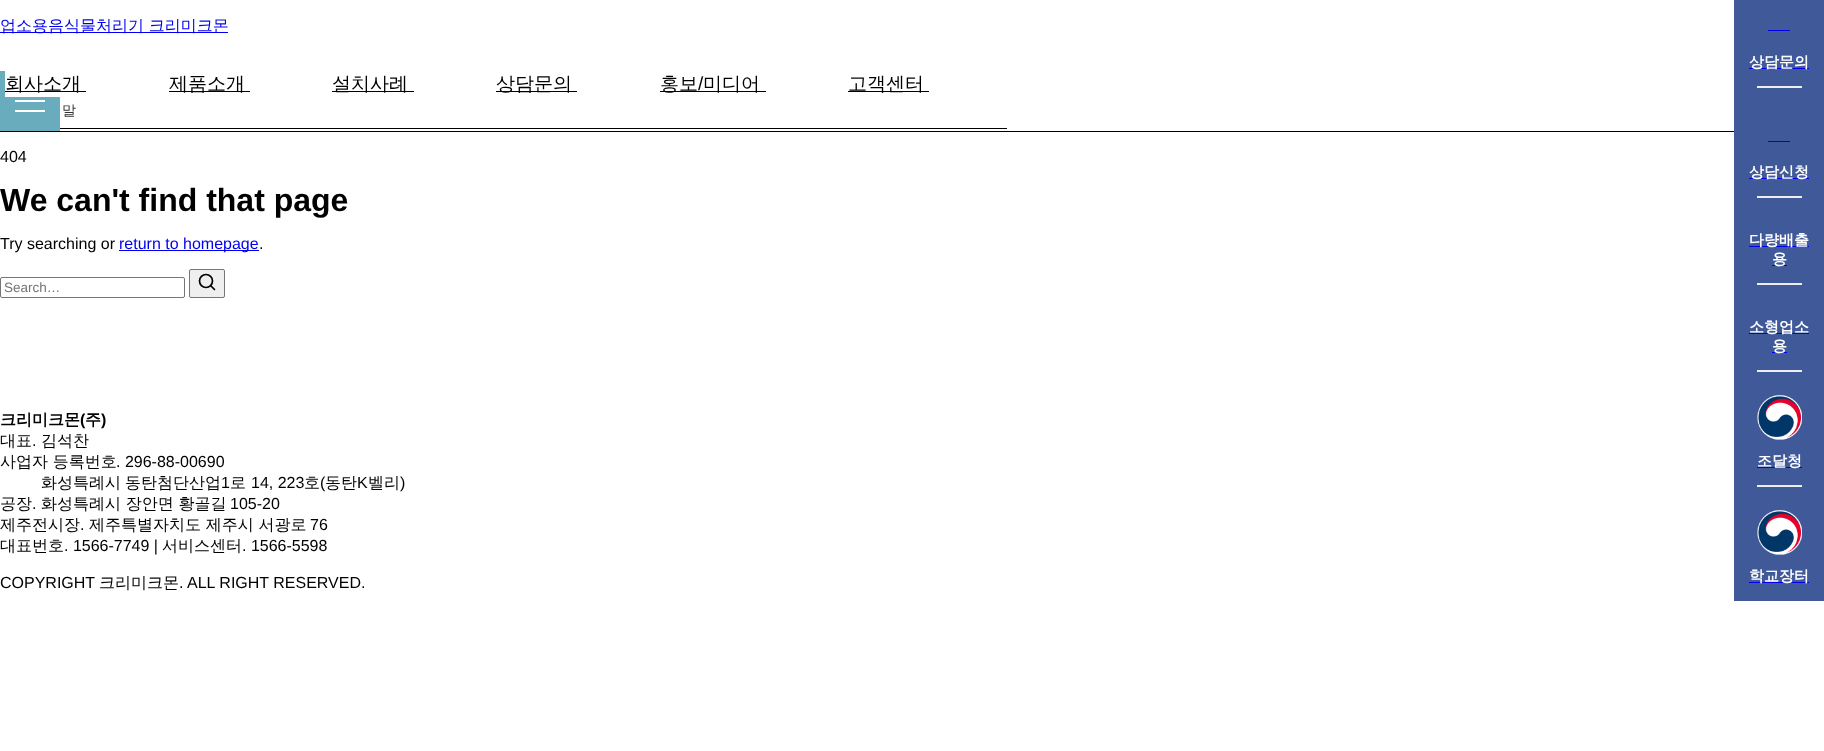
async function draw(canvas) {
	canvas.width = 1824;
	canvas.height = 751;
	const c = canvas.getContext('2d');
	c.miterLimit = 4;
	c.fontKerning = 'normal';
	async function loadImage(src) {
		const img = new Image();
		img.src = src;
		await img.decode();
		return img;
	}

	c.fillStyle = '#fff';
	c.fillRect(0, 0, 1824, 751);
	c.fillStyle = '#00e';
	c.fillRect(0, 32, 228, 1);
	c.font = '500 16px WenQuanYi Zen Hei';
	c.fillText('업소용음식물처리기 크리미크몬', 0, 31);
	for (const [x, y, w, h, color] of [
		[0, 131, 1734, 1, '#000'],
		[0, 71, 60, 60, '#68acbe'],
		[15, 100, 30, 2, '#fff'],
		[15, 110, 30, 2, '#fff'],
		[60, 128, 947, 1, '#000'],
		[5, 71, 55, 26, '#fff'],
		[5, 91, 81, 1, '#000'],
	]) {
		c.fillStyle = color;
		c.fillRect(x, y, w, h);
	}
	c.font = '500 19px WenQuanYi Zen Hei';
	c.fillText('회사소개', 5, 90);
	c.fillRect(169, 91, 81, 1);
	c.fillText('제품소개', 169, 90);
	c.fillRect(332, 91, 82, 1);
	c.fillText('설치사례', 332, 90);
	c.fillRect(496, 91, 81, 1);
	c.fillText('상담문의', 496, 90);
	c.fillRect(660, 91, 106, 1);
	c.fillText('홍보', 660, 90);
	c.font = '19px Liberation Sans';
	c.fillText('/', 698, 90);
	c.font = '500 19px WenQuanYi Zen Hei';
	c.fillText('미디어', 703, 90);
	c.fillRect(848, 91, 81, 1);
	c.fillText('고객센터', 848, 90);
	c.font = '500 14px WenQuanYi Zen Hei';
	c.fillStyle = '#333';
	c.fillText('말', 62, 115);
	c.font = '16px Liberation Sans';
	c.fillStyle = '#000';
	c.fillText('COPYRIGHT', 0, 588);
	c.font = '500 16px WenQuanYi Zen Hei';
	c.fillText('크리미크몬', 99, 588);
	c.font = '16px Liberation Sans';
	c.fillText('. ALL RIGHT RESERVED.', 179, 588);
	for (const [x, y, w, h, color] of [
		[1734, 0, 90, 601, '#405999'],
		[1768, 30, 22, 1, '#00e'],
		[1749, 68, 60, 1, '#00e'],
	]) {
		c.fillStyle = color;
		c.fillRect(x, y, w, h);
	}
	c.font = 'bold 15px WenQuanYi Zen Hei';
	c.fillStyle = '#fff';
	c.fillText('상담문의', 1749, 67);
	for (const [x, y, w, h, color] of [
		[1757, 86, 45, 2, '#eee'],
		[1768, 141, 22, 1, '#00e'],
		[1749, 178, 60, 1, '#00e'],
	]) {
		c.fillStyle = color;
		c.fillRect(x, y, w, h);
	}
	c.fillStyle = '#fff';
	c.fillText('상담신청', 1749, 177);
	c.fillStyle = '#eee';
	c.fillRect(1757, 196, 45, 2);
	c.fillStyle = '#00e';
	c.fillRect(1749, 246, 60, 1);
	c.fillStyle = '#fff';
	c.fillText('다량배출', 1749, 245);
	c.fillStyle = '#00e';
	c.fillRect(1772, 265, 15, 1);
	c.fillStyle = '#fff';
	c.fillText('용', 1772, 264);
	c.fillStyle = '#eee';
	c.fillRect(1757, 283, 45, 2);
	c.fillStyle = '#00e';
	c.fillRect(1749, 333, 60, 1);
	c.fillStyle = '#fff';
	c.fillText('소형업소', 1749, 332);
	c.fillStyle = '#00e';
	c.fillRect(1772, 352, 15, 1);
	c.fillStyle = '#fff';
	c.fillText('용', 1772, 351);
	c.fillStyle = '#eee';
	c.fillRect(1757, 370, 45, 2);
	c.drawImage(await loadImage('img1.png'), 1757, 395, 45, 45);
	c.fillStyle = '#00e';
	c.fillRect(1757, 467, 45, 1);
	c.fillStyle = '#fff';
	c.fillText('조달청', 1757, 466);
	c.fillStyle = '#eee';
	c.fillRect(1757, 485, 45, 2);
	c.drawImage(await loadImage('img1.png'), 1757, 510, 45, 45);
	c.fillStyle = '#00e';
	c.fillRect(1749, 582, 60, 1);
	c.fillStyle = '#fff';
	c.fillText('학교장터', 1749, 581);
	c.font = 'bold 16px WenQuanYi Zen Hei';
	c.fillStyle = '#000';
	c.fillText('크리미크몬', 0, 425);
	c.font = 'bold 16px Liberation Sans';
	c.fillText('(', 80, 425);
	c.font = 'bold 16px WenQuanYi Zen Hei';
	c.fillText('주', 85, 425);
	c.font = 'bold 16px Liberation Sans';
	c.fillText(')', 101, 425);
	c.font = '500 16px WenQuanYi Zen Hei';
	c.fillText('대표', 0, 446);
	c.font = '16px Liberation Sans';
	c.fillText('.', 32, 446);
	c.font = '500 16px WenQuanYi Zen Hei';
	c.fillText('김석찬', 41, 446);
	c.fillText('사업자 등록번호', 0, 467);
	c.font = '16px Liberation Sans';
	c.fillText('. 296-88-00690', 116, 467);
	c.font = '500 16px WenQuanYi Zen Hei';
	c.fillText('화성특례시', 41, 488);
	c.fillText('동탄첨단산업', 125, 488);
	c.font = '16px Liberation Sans';
	c.fillText('1', 221, 488);
	c.font = '500 16px WenQuanYi Zen Hei';
	c.fillText('로', 230, 488);
	c.font = '16px Liberation Sans';
	c.fillText('14, 223', 251, 488);
	c.font = '500 16px WenQuanYi Zen Hei';
	c.fillText('호', 304, 488);
	c.font = '16px Liberation Sans';
	c.fillText('(', 320, 488);
	c.font = '500 16px WenQuanYi Zen Hei';
	c.fillText('동탄', 325, 488);
	c.font = '16px Liberation Sans';
	c.fillText('K', 357, 488);
	c.font = '500 16px WenQuanYi Zen Hei';
	c.fillText('벨리', 368, 488);
	c.font = '16px Liberation Sans';
	c.fillText(')', 400, 488);
	c.font = '500 16px WenQuanYi Zen Hei';
	c.fillText('공장', 0, 509);
	c.font = '16px Liberation Sans';
	c.fillText('.', 32, 509);
	c.font = '500 16px WenQuanYi Zen Hei';
	c.fillText('화성특례시 장안면 황골길', 41, 509);
	c.font = '16px Liberation Sans';
	c.fillText('105-20', 230, 509);
	c.font = '500 16px WenQuanYi Zen Hei';
	c.fillText('제주전시장', 0, 530);
	c.font = '16px Liberation Sans';
	c.fillText('.', 80, 530);
	c.font = '500 16px WenQuanYi Zen Hei';
	c.fillText('제주특별자치도 제주시 서광로', 89, 530);
	c.font = '16px Liberation Sans';
	c.fillText('76', 310, 530);
	c.font = '500 16px WenQuanYi Zen Hei';
	c.fillText('대표번호', 0, 551);
	c.font = '16px Liberation Sans';
	c.fillText('. 1566-7749 |', 64, 551);
	c.font = '500 16px WenQuanYi Zen Hei';
	c.fillText('서비스센터', 162, 551);
	c.font = '16px Liberation Sans';
	c.fillText('. 1566-5598', 242, 551);
	c.fillText('404', 0, 162);
	c.font = 'bold 32px Liberation Sans';
	c.fillText('We can\'t find that page', 0, 211);
	c.font = '16px Liberation Sans';
	c.fillText('Try searching or', 0, 249);
	c.fillStyle = '#00e';
	c.fillRect(119, 250, 140, 1);
	c.fillText('return to homepage', 119, 249);
	c.fillStyle = '#000';
	c.fillText('.', 259, 249);
	c.beginPath();
	c.roundRect(0.5, 277.5, 184, 20, 1.5);
	c.strokeStyle = '#767676';
	c.stroke();
	c.font = '13.5px Liberation Sans';
	c.fillStyle = '#757575';
	c.fillText('Search…', 4, 292);
	c.fillStyle = '#efefef';
	c.beginPath();
	c.roundRect(189.5, 269.5, 35, 28, 1.5);
	c.fill();
	c.stroke();
	c.beginPath();
	c.arc(206, 281, 6.5, 0, 2 * Math.PI);
	c.strokeStyle = '#000';
	c.lineWidth = 1.7;
	c.stroke();
	c.beginPath();
	c.moveTo(214.5, 289.5);
	c.lineTo(211, 286);
	c.lineCap = 'round';
	c.lineJoin = 'round';
	c.stroke();
}

draw(document.querySelector('canvas'));
